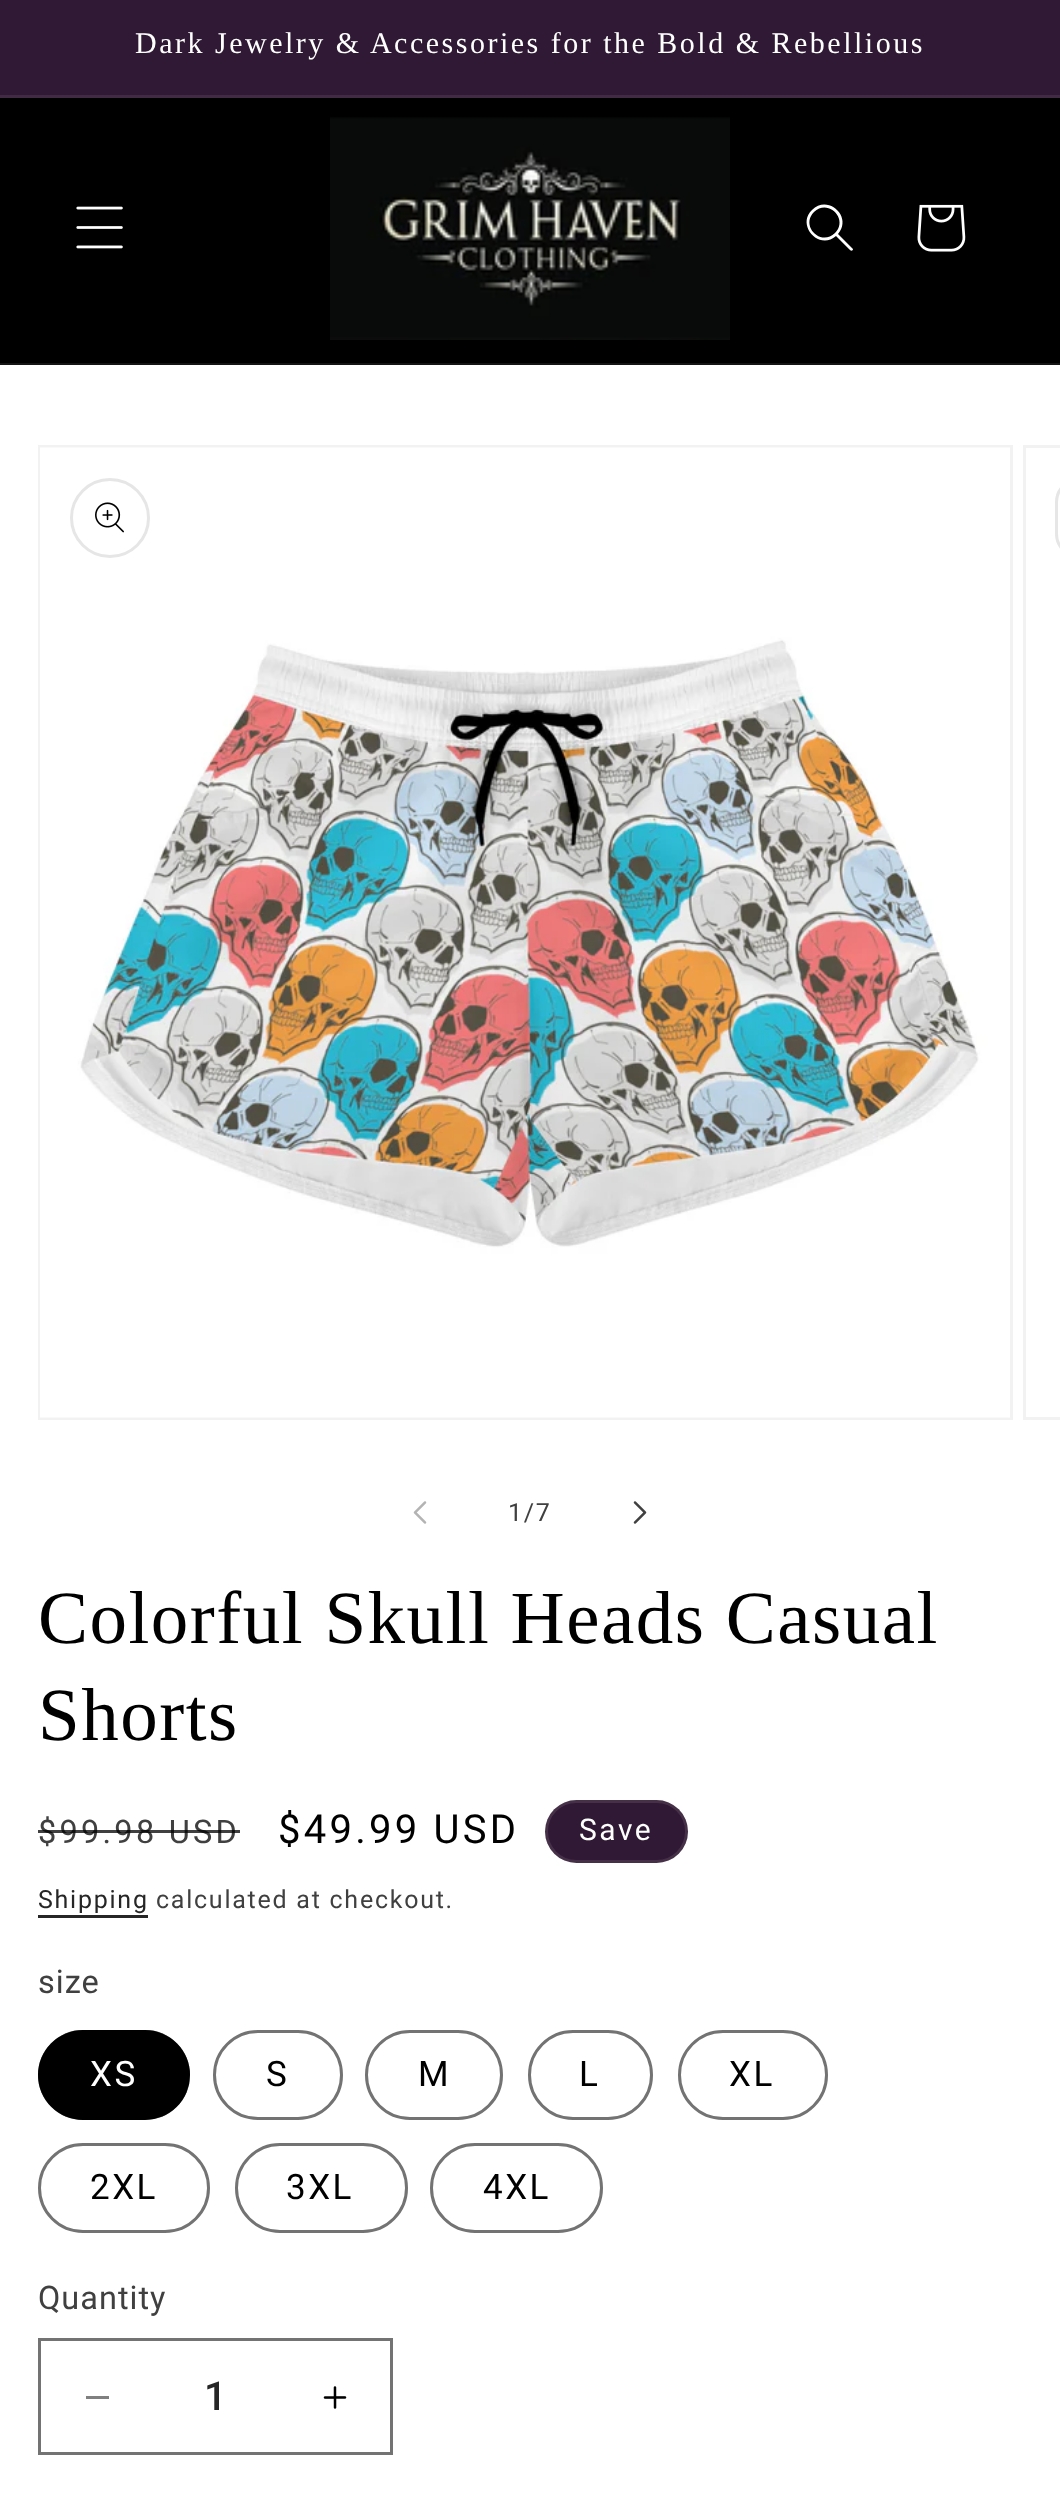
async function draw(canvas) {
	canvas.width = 1060;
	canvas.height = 2513;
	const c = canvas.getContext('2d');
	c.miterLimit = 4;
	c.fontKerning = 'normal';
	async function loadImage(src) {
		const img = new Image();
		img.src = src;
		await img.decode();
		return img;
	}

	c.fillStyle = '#fff';
	c.fillRect(0, 0, 1060, 2513);
	c.fillStyle = '#301934';
	c.fillRect(0, 0, 1060, 95);
	c.fillStyle = '#412b44';
	c.fillRect(0, 95, 1060, 3);
	c.letterSpacing = '2.5px';
	c.font = '30px Liberation Serif';
	c.fillStyle = '#fff';
	c.fillText('Dark Jewelry & Accessories for the Bold & Rebellious', 135, 53);
	c.fillStyle = '#000';
	c.fillRect(0, 98, 1060, 265);
	c.fillStyle = '#141414';
	c.fillRect(0, 363, 1060, 2);
	c.drawImage(await loadImage('img1.png'), 76, 206, 47, 43);
	c.drawImage(await loadImage('img2.png'), 330, 117, 400, 223);
	c.fillStyle = '#fff';
	c.beginPath();
	c.moveTo(835, 233);
	c.bezierCurveTo(821, 247, 800, 226, 814, 212);
	c.bezierCurveTo(828, 198, 849, 219, 835, 233);
	c.moveTo(836, 236);
	c.bezierCurveTo(819, 251, 796, 225, 812, 210);
	c.bezierCurveTo(828, 194, 853, 217, 838, 234);
	c.lineTo(853, 249);
	c.bezierCurveTo(853, 251, 851, 251, 850, 250);
	c.closePath();
	c.fill('evenodd');
	c.drawImage(await loadImage('img3.png'), 917, 204, 49, 48);
	c.strokeStyle = '#f2f2f2';
	c.lineWidth = 3;
	c.strokeRect(39.5, 446.5, 972, 972);
	c.drawImage(await loadImage('img4.png'), 40, 447, 970, 971);
	c.beginPath();
	c.arc(110, 518, 38.5, 0, 2 * Math.PI);
	c.strokeStyle = '#e6e6e6';
	c.stroke();
	c.drawImage(await loadImage('img5.png'), 95, 502, 29, 31);
	c.strokeStyle = '#f2f2f2';
	c.strokeRect(1024.5, 446.5, 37, 972);
	c.beginPath();
	c.roundRect(1056.5, 479.5, 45, 77, 38.5);
	c.strokeStyle = '#e6e6e6';
	c.stroke();
	c.drawImage(await loadImage('img6.png'), 413, 1501, 14, 23);
	c.letterSpacing = '1.75px';
	c.font = '25px Roboto';
	c.fillStyle = '#404040';
	c.fillText('1/7', 508, 1521);
	c.drawImage(await loadImage('img7.png'), 633, 1501, 14, 23);
	c.letterSpacing = '1.5px';
	c.font = '75px Liberation Serif';
	c.fillStyle = '#000';
	c.fillText('Colorful Skull Heads Casual', 38, 1643);
	c.fillText('Shorts', 38, 1740);
	c.letterSpacing = '3.25px';
	c.font = '32.5px Roboto';
	c.fillStyle = '#404040';
	c.fillText('$99.98 USD', 38, 1843);
	c.fillStyle = '#000000bf';
	c.fillRect(38, 1830, 202, 3);
	c.font = '40px Roboto';
	c.fillStyle = '#000';
	c.fillText('$49.99 USD', 278, 1843);
	c.fillStyle = '#301934';
	c.beginPath();
	c.roundRect(545, 1800, 143, 63, 31.5);
	c.fill();
	c.beginPath();
	c.roundRect(546.5, 1801.5, 140, 60, 30);
	c.strokeStyle = '#ffffff1a';
	c.stroke();
	c.letterSpacing = '2.5px';
	c.font = '30px Roboto';
	c.fillStyle = '#fff';
	c.fillText('Save', 579, 1840);
	c.letterSpacing = '1.75px';
	c.font = '25px Roboto';
	c.fillStyle = '#262626';
	c.fillText('Shipping', 38, 1908);
	c.fillRect(38, 1915, 110, 3);
	c.fillStyle = '#404040';
	c.fillText('calculated at checkout.', 156, 1908);
	c.letterSpacing = '1px';
	c.font = '32.5px Roboto';
	c.fillText('size', 38, 1993);
	c.fillStyle = '#000';
	c.beginPath();
	c.roundRect(38, 2030, 152, 90, 45);
	c.fill();
	c.beginPath();
	c.roundRect(39.5, 2031.5, 149, 87, 43.5);
	c.strokeStyle = '#0000008c';
	c.stroke();
	c.letterSpacing = '2.5px';
	c.font = '35px Roboto';
	c.fillStyle = '#fff';
	c.fillText('XS', 90, 2086);
	c.beginPath();
	c.roundRect(214.5, 2031.5, 127, 87, 43.5);
	c.strokeStyle = '#737373';
	c.stroke();
	c.fillStyle = '#000';
	c.fillText('S', 266, 2086);
	c.beginPath();
	c.roundRect(366.5, 2031.5, 135, 87, 43.5);
	c.stroke();
	c.fillText('M', 418, 2086);
	c.beginPath();
	c.roundRect(529.5, 2031.5, 122, 87, 43.5);
	c.stroke();
	c.fillText('L', 579, 2086);
	c.beginPath();
	c.roundRect(679.5, 2031.5, 147, 87, 43.5);
	c.stroke();
	c.fillText('XL', 729, 2086);
	c.beginPath();
	c.roundRect(39.5, 2144.5, 169, 87, 43.5);
	c.stroke();
	c.fillText('2XL', 90, 2199);
	c.beginPath();
	c.roundRect(236.5, 2144.5, 170, 87, 43.5);
	c.stroke();
	c.fillText('3XL', 286, 2199);
	c.beginPath();
	c.roundRect(431.5, 2144.5, 170, 87, 43.5);
	c.stroke();
	c.fillText('4XL', 483, 2199);
	c.letterSpacing = '1px';
	c.font = '32.5px Roboto';
	c.fillStyle = '#404040';
	c.fillText('Quantity', 38, 2309);
	c.fillStyle = '#808080';
	c.fillRect(86, 2396, 23, 3);
	c.drawImage(await loadImage('img8.png'), 323, 2386, 24, 23);
	c.strokeRect(39.5, 2339.5, 352, 114);
	c.letterSpacing = '0px';
	c.font = '500 40px Roboto';
	c.fillStyle = '#262626';
	c.fillText('1', 204, 2410);
}

draw(document.querySelector('canvas'));
